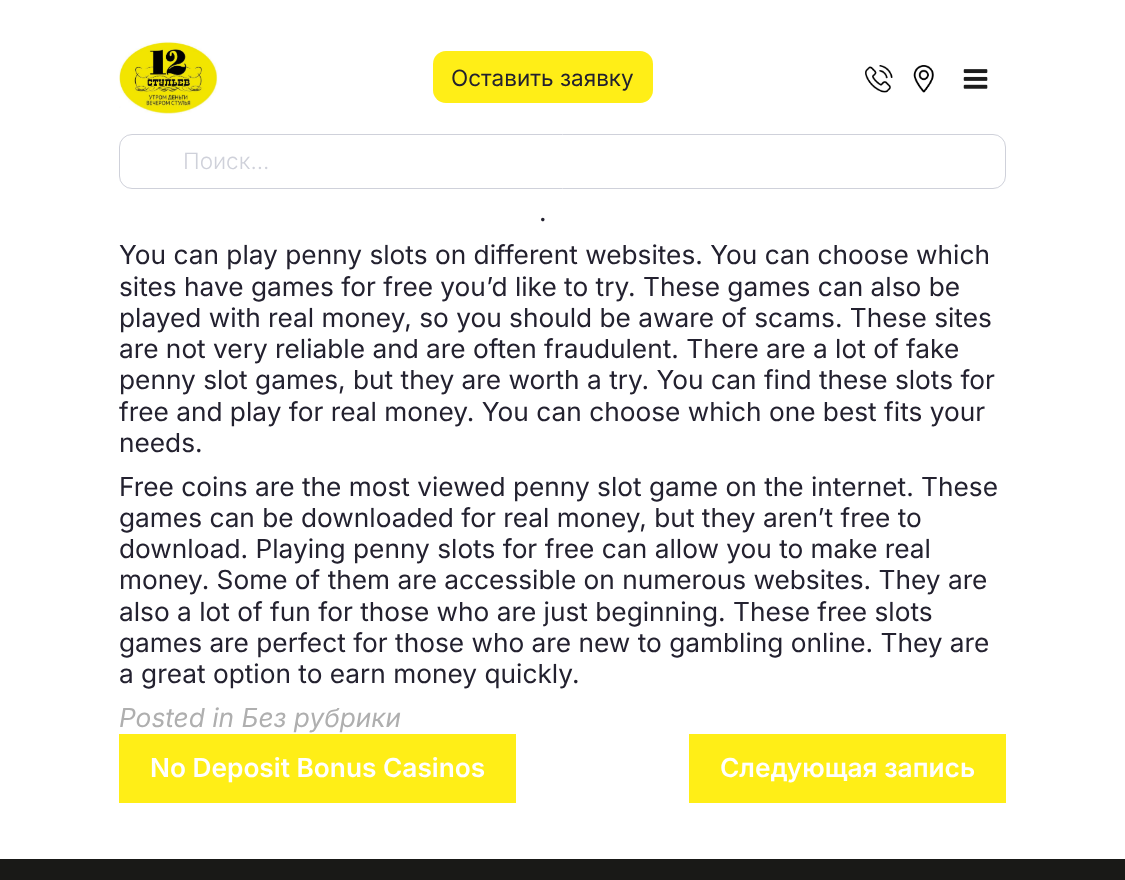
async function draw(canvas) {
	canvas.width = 1125;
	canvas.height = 880;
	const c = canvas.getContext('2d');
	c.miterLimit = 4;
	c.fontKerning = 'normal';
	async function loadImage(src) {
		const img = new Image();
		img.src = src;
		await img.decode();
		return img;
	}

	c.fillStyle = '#fff';
	c.fillRect(0, 0, 1125, 880);
	c.drawImage(await loadImage('img1.png'), 119, 41, 99, 73);
	c.fillStyle = '#ffee17';
	c.beginPath();
	c.roundRect(433, 51, 220, 52, 13);
	c.fill();
	c.font = '22.5px Inter';
	c.fillStyle = '#23212f';
	c.fillText('Оставить заявку', 451, 86);
	c.drawImage(await loadImage('img2.png'), 865, 65, 69, 28);
	c.drawImage(await loadImage('img3.png'), 963, 69, 25, 20);
	c.beginPath();
	c.roundRect(119.5, 134.5, 886, 54, 12.5);
	c.strokeStyle = '#cfd1da';
	c.stroke();
	c.font = '300 22.5px Inter';
	c.fillStyle = '#cfd1da';
	c.fillText('Поиск...', 183, 169);
	c.font = '26.25px Inter';
	c.fillStyle = '#23212f';
	for (const [text, x, y] of [
		['.', 539, 221],
		['You can play penny slots on different websites. You can choose which', 119, 264],
		['sites have games for free you’d like to try. These games can also be', 119, 296],
		['played with real money, so you should be aware of scams. These sites', 119, 327],
		['are not very reliable and are often fraudulent. There are a lot of fake', 119, 358],
		['penny slot games, but they are worth a try. You can find these slots for', 119, 389],
		['free and play for real money. You can choose which one best fits your', 119, 421],
		['needs.', 119, 452],
		['Free coins are the most viewed penny slot game on the internet. These', 119, 496],
		['games can be downloaded for real money, but they aren’t free to', 119, 527],
		['download. Playing penny slots for free can allow you to make real', 119, 558],
		['money. Some of them are accessible on numerous websites. They are', 119, 589],
		['also a lot of fun for those who are just beginning. These free slots', 119, 621],
		['games are perfect for those who are new to gambling online. They are', 119, 652],
		['a great option to earn money quickly.', 119, 683],
	]) {
		c.fillText(text, x, y);
	}
	c.font = 'italic 26.25px Inter';
	c.fillStyle = '#afafaf';
	c.fillText('Posted in Без рубрики', 119, 727);
	c.fillStyle = '#ffee17';
	c.fillRect(119, 734, 397, 69);
	c.font = '600 26.25px Inter';
	c.fillStyle = '#fff';
	c.fillText('No Deposit Bonus Casinos', 150, 777);
	c.fillStyle = '#ffee17';
	c.fillRect(689, 734, 317, 69);
	c.fillStyle = '#fff';
	c.fillText('Следующая запись', 720, 777);
	c.fillStyle = '#191917';
	c.fillRect(0, 859, 1125, 21);
}

draw(document.querySelector('canvas'));
